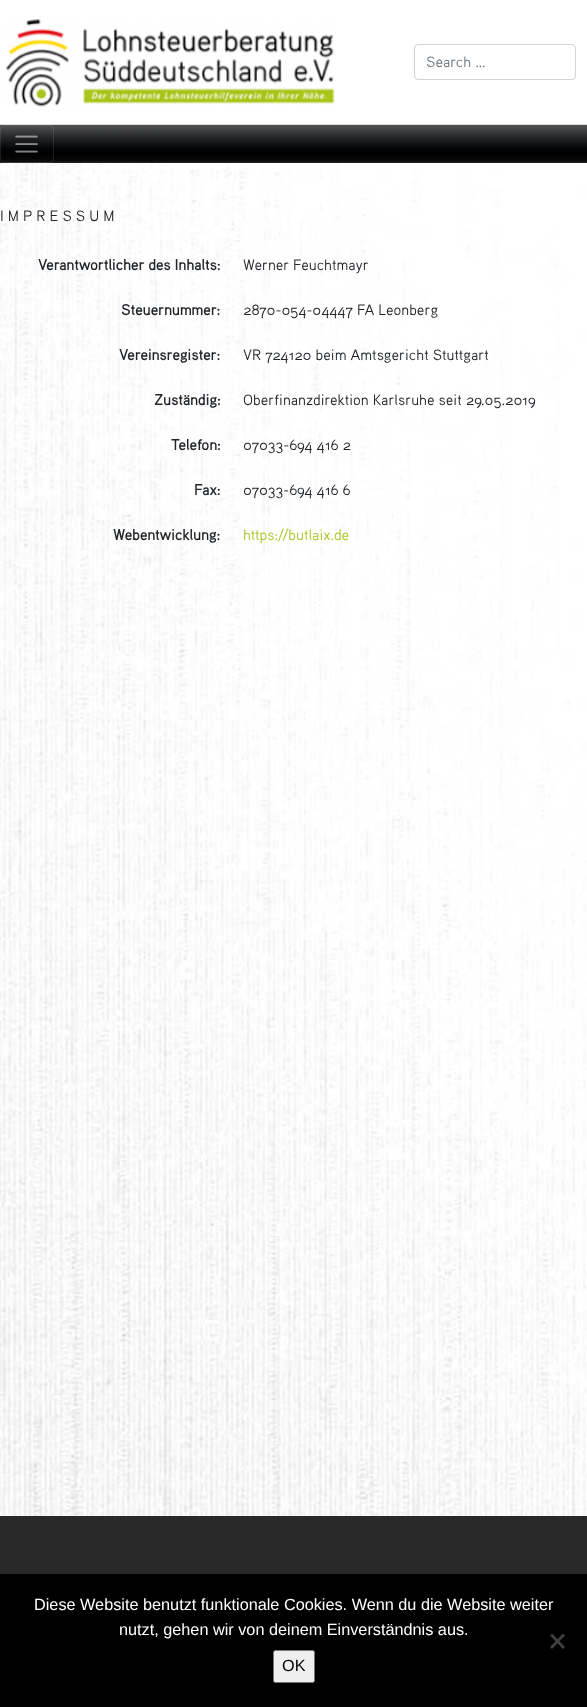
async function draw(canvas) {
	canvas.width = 587;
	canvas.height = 1707;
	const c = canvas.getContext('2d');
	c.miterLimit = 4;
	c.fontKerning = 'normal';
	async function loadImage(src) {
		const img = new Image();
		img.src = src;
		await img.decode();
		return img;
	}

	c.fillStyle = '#fff';
	c.fillRect(0, 0, 587, 1707);
	c.drawImage(await loadImage('img1.png'), 0, 163, 587, 1353);
	c.drawImage(await loadImage('img2.png'), 5, 19, 330, 88);
	c.beginPath();
	c.roundRect(414.5, 44.5, 161, 35, 3.5);
	c.strokeStyle = '#ced4da';
	c.stroke();
	c.font = '15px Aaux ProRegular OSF';
	c.fillStyle = '#6c757d';
	c.fillText('Search …', 426, 67);
	c.fillStyle = '#343a40';
	c.fillRect(0, 125, 587, 38);
	c.drawImage(await loadImage('img3.png'), 0, 124, 587, 39);
	c.beginPath();
	c.roundRect(0.5, 125.5, 53, 37, 3.5);
	c.strokeStyle = '#ffffff1a';
	c.stroke();
	c.drawImage(await loadImage('img4.png'), 15, 135, 23, 18);
	c.fillStyle = '#212529';
	c.fillText('I M P R E S S U M', 0, 221);
	c.font = 'bold 15px Aaux ProRegular OSF';
	c.fillText('Verantwortlicher des Inhalts:', 38, 270);
	c.font = '15px Aaux ProRegular OSF';
	c.fillText('Werner Feuchtmayr', 243, 270);
	c.font = 'bold 15px Aaux ProRegular OSF';
	c.fillText('Steuernummer:', 121, 315);
	c.font = '15px Aaux ProRegular OSF';
	c.fillText('2870-054-04447 FA Leonberg', 243, 315);
	c.font = 'bold 15px Aaux ProRegular OSF';
	c.fillText('Vereinsregister:', 119, 360);
	c.font = '15px Aaux ProRegular OSF';
	c.fillText('VR 724120 beim Amtsgericht Stuttgart', 243, 360);
	c.font = 'bold 15px Aaux ProRegular OSF';
	c.fillText('Zuständig:', 154, 405);
	c.font = '15px Aaux ProRegular OSF';
	c.fillText('Oberfinanzdirektion Karlsruhe seit 29.05.2019', 243, 405);
	c.font = 'bold 15px Aaux ProRegular OSF';
	c.fillText('Telefon:', 171, 450);
	c.font = '15px Aaux ProRegular OSF';
	c.fillText('07033-694 416 2', 243, 450);
	c.font = 'bold 15px Aaux ProRegular OSF';
	c.fillText('Fax:', 194, 495);
	c.font = '15px Aaux ProRegular OSF';
	c.fillText('07033-694 416 6', 243, 495);
	c.font = 'bold 15px Aaux ProRegular OSF';
	c.fillText('Webentwicklung:', 113, 540);
	c.font = '15px Aaux ProRegular OSF';
	c.fillStyle = '#a8c726';
	c.fillText('https://butlaix.de', 243, 540);
	c.fillStyle = '#292929';
	c.fillRect(0, 1516, 587, 58);
	c.fillStyle = '#000';
	c.fillRect(0, 1574, 587, 133);
	c.font = '16.25px Liberation Sans';
	c.fillStyle = '#fff';
	c.fillText('Diese Website benutzt funktionale Cookies. Wenn du die Website weiter', 34, 1610);
	c.fillText('nutzt, gehen wir von deinem Einverständnis aus.', 119, 1635);
	c.fillStyle = '#404040';
	c.beginPath();
	c.moveTo(563, 1633.5);
	c.lineTo(565, 1635.5);
	c.lineTo(552, 1649);
	c.lineTo(550, 1647);
	c.closePath();
	c.fill();
	c.beginPath();
	c.moveTo(550, 1635.5);
	c.lineTo(552, 1633.5);
	c.lineTo(565, 1647);
	c.lineTo(563, 1649);
	c.closePath();
	c.fill();
	c.fillStyle = '#efefef';
	c.beginPath();
	c.roundRect(273.5, 1650.5, 41, 32, 2);
	c.fill();
	c.strokeStyle = '#767676';
	c.stroke();
	c.fillStyle = '#000';
	c.fillText('OK', 282, 1671);
}

draw(document.querySelector('canvas'));
